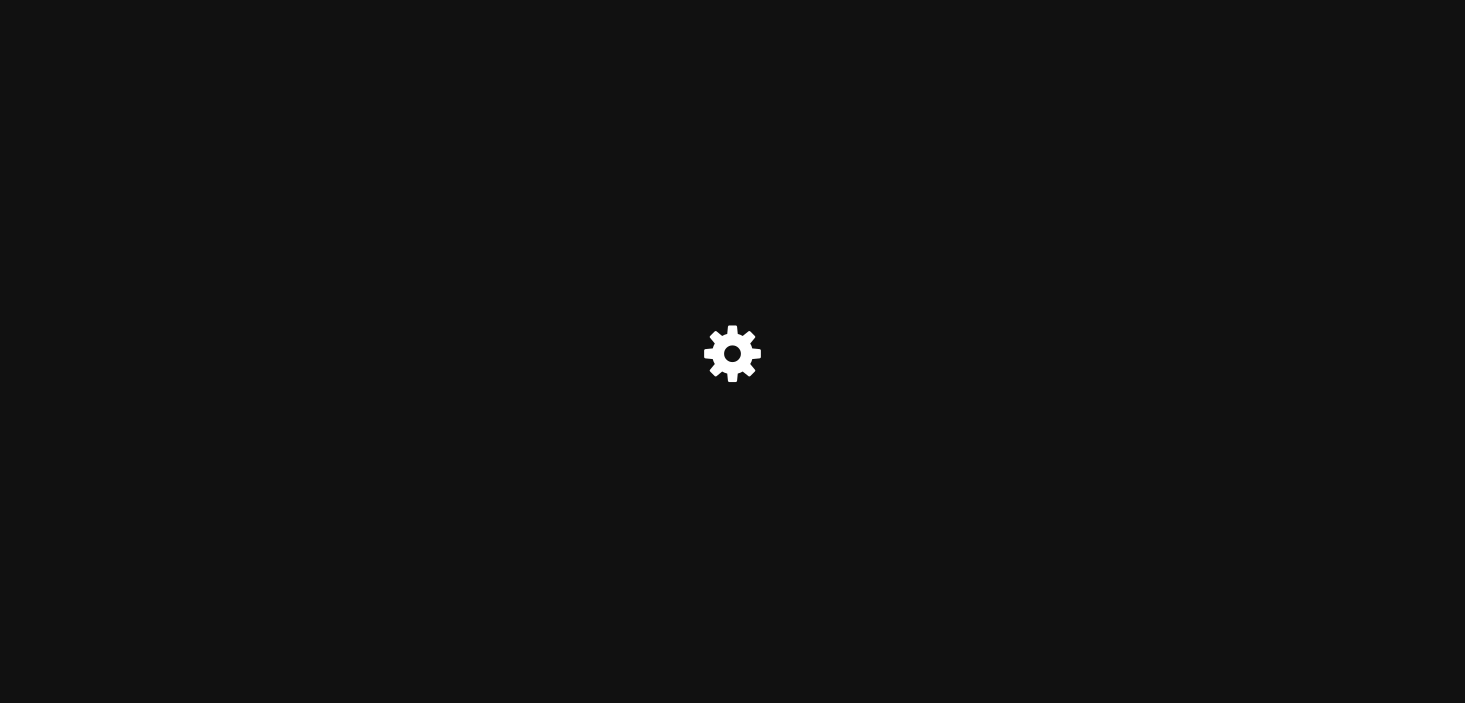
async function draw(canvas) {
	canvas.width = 1465;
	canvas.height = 703;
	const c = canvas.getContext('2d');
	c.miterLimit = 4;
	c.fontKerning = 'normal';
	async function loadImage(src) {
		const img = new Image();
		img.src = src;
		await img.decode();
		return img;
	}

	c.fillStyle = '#111';
	c.fillRect(0, 0, 1465, 703);
	c.drawImage(await loadImage('img1.png'), 704, 325, 57, 58);
}

draw(document.querySelector('canvas'));
